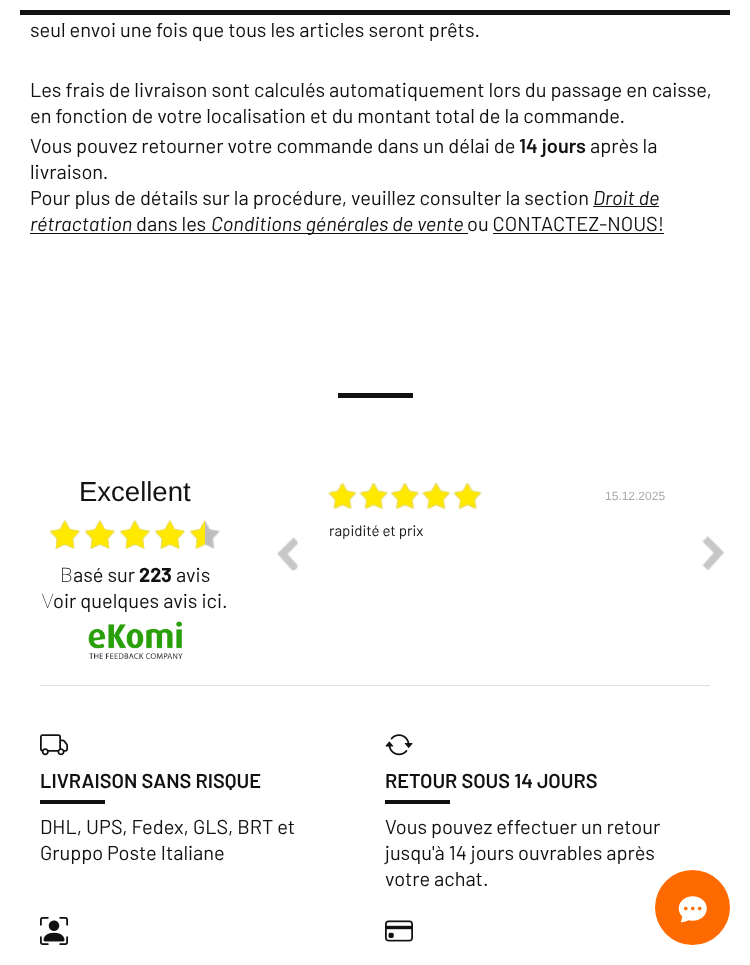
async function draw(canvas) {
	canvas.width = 750;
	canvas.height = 965;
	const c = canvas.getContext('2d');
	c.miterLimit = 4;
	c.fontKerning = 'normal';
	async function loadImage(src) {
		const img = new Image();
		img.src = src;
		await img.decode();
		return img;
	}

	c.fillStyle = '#fff';
	c.fillRect(0, 0, 750, 965);
	c.fillStyle = '#111';
	c.fillRect(20, 10, 710, 5);
	c.font = '20px Barlow';
	for (const [text, x, y] of [
		['seul envoi une fois que tous les articles seront prêts.', 30, 37],
		['Les frais de livraison sont calculés automatiquement lors du passage en caisse,', 30, 97],
		['en fonction de votre localisation et du montant total de la commande.', 30, 123],
		['Vous pouvez retourner votre commande dans un délai de', 30, 153],
	]) {
		c.fillText(text, x, y);
	}
	c.font = '600 20px Barlow';
	c.fillText('14 jours', 519, 153);
	c.font = '20px Barlow';
	for (const [text, x, y] of [
		['après la', 590, 153],
		['livraison.', 30, 179],
		['Pour plus de détails sur la procédure, veuillez consulter la section', 30, 205],
	]) {
		c.fillText(text, x, y);
	}
	c.font = 'italic 20px Barlow';
	c.fillText('Droit de', 593, 205);
	c.fillRect(593, 206, 66, 1);
	c.fillText('rétractation', 30, 231);
	c.font = '20px Barlow';
	c.fillText('dans les', 136, 231);
	c.fillRect(30, 233, 438, 1);
	c.font = 'italic 20px Barlow';
	c.fillText('Conditions générales de vente', 211, 231);
	c.font = '20px Barlow';
	c.fillText('ou CONTACTEZ-NOUS!', 467, 231);
	c.fillRect(493, 233, 171, 1);
	c.fillRect(338, 393, 75, 5);
	c.font = '27.5px Liberation Sans';
	c.fillText('Excellent', 79, 501);
	c.drawImage(await loadImage('img1.png'), 50, 520, 170, 29);
	c.drawImage(await loadImage('img2.png'), 50, 520, 155, 29);
	c.font = '200 20px Noto Sans';
	c.fillText('B', 60, 582);
	c.font = '20px Barlow';
	c.fillText('asé sur', 73, 582);
	c.font = 'bold 20px Barlow';
	c.fillText('223', 139, 582);
	c.font = '20px Barlow';
	c.fillText('avis', 176, 582);
	c.font = '100 20px Noto Sans';
	c.fillText('V', 42, 608);
	c.font = '20px Barlow';
	c.fillText('oir quelques avis ici.', 53, 608);
	c.drawImage(await loadImage('img3.png'), 88, 621, 95, 38);
	c.drawImage(await loadImage('img4.png'), 328, 483, 154, 27);
	c.drawImage(await loadImage('img5.png'), 328, 483, 154, 27);
	c.font = '12px Liberation Sans';
	c.fillStyle = '#aaa';
	c.fillText('15.12.2025', 605, 500);
	c.font = '15px Barlow';
	c.fillStyle = '#111';
	c.fillText('rapidité et prix', 329, 536);
	c.drawImage(await loadImage('img6.png'), 277, 537, 21, 34);
	c.drawImage(await loadImage('img7.png'), 702, 536, 22, 35);
	c.fillStyle = '#dee2e6';
	c.fillRect(40, 685, 670, 1);
	c.drawImage(await loadImage('img8.png'), 40, 734, 28, 22);
	c.font = '600 20px Barlow';
	c.fillStyle = '#111';
	c.fillText('LIVRAISON SANS RISQUE', 40, 788);
	c.fillRect(40, 800, 65, 4);
	c.font = '20px Barlow';
	c.fillText('DHL, UPS, Fedex, GLS, BRT et', 40, 834);
	c.fillText('Gruppo Poste Italiane', 40, 860);
	c.drawImage(await loadImage('img9.png'), 385, 734, 28, 22);
	c.font = '600 20px Barlow';
	c.fillText('RETOUR SOUS 14 JOURS', 385, 788);
	c.fillRect(385, 800, 65, 4);
	c.font = '20px Barlow';
	for (const [text, x, y] of [
		['Vous pouvez effectuer un retour', 385, 834],
		['jusqu\'à 14 jours ouvrables après', 385, 860],
		['votre achat.', 385, 886],
	]) {
		c.fillText(text, x, y);
	}
	c.drawImage(await loadImage('img10.png'), 40, 917, 28, 28);
	c.drawImage(await loadImage('img11.png'), 385, 920, 28, 22);
	c.fillStyle = '#ff6a00';
	c.beginPath();
	c.arc(692.5, 907.5, 37.5, 0, 2 * Math.PI);
	c.fill();
	c.drawImage(await loadImage('img12.png'), 678, 896, 29, 27);
}

draw(document.querySelector('canvas'));
